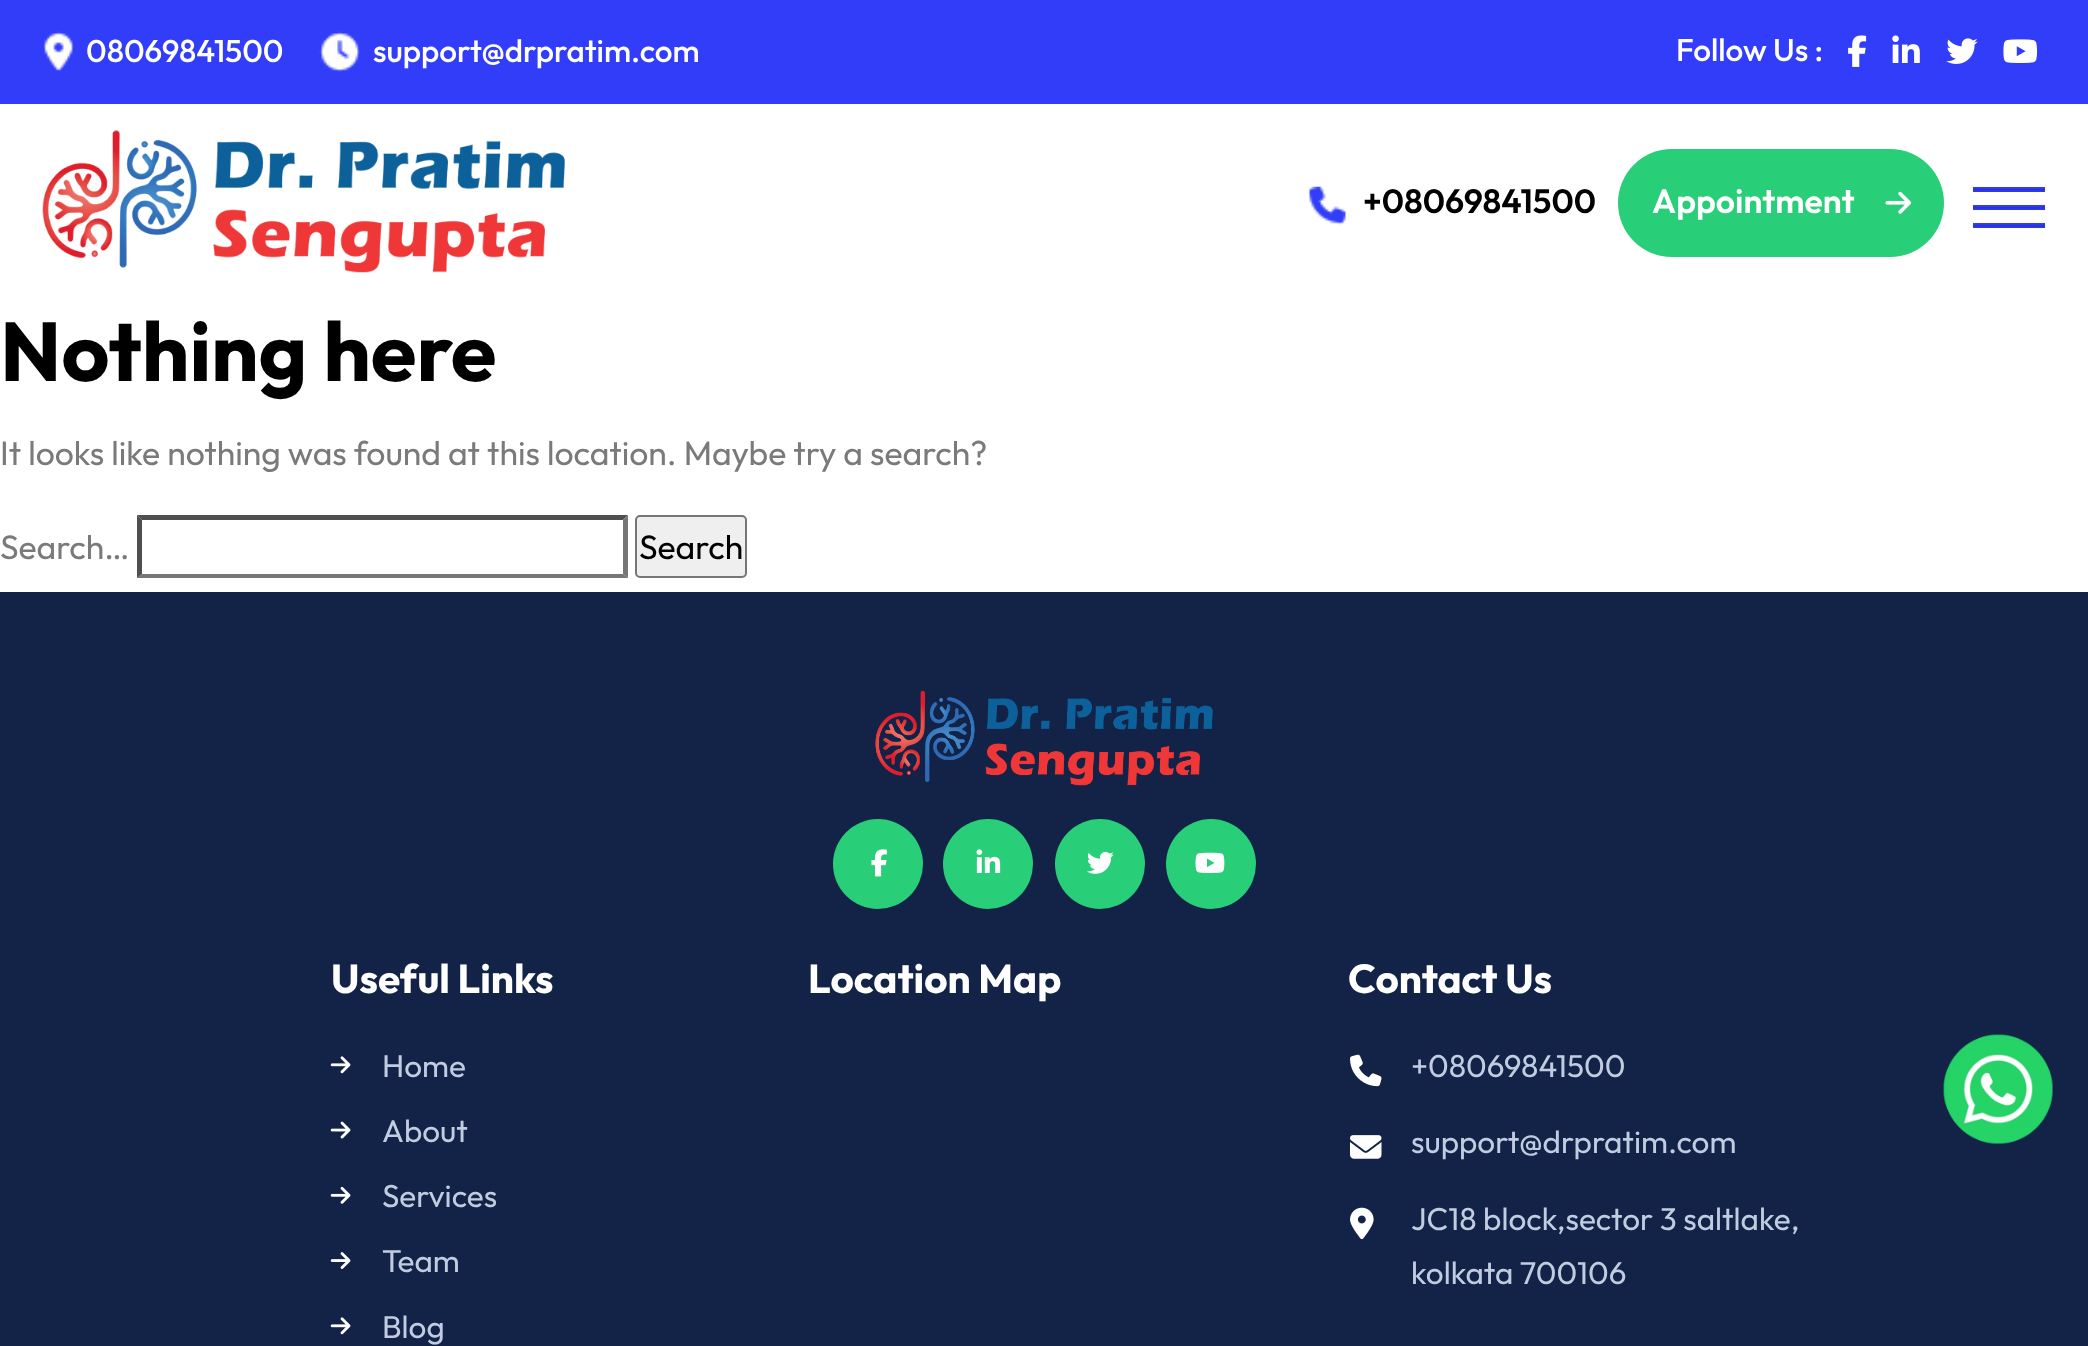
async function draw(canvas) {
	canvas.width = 2088;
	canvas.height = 1346;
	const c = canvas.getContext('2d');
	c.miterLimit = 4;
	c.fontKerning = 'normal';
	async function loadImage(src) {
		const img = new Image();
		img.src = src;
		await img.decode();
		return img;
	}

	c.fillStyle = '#fff';
	c.fillRect(0, 0, 2088, 1346);
	c.fillStyle = '#313df9';
	c.fillRect(0, 0, 2088, 104);
	c.drawImage(await loadImage('img1.png'), 43, 31, 31, 40);
	c.font = '500 31.5px Outfit';
	c.fillStyle = '#fff';
	c.fillText('08069841500', 86, 62);
	c.drawImage(await loadImage('img2.png'), 319, 31, 41, 41);
	c.fillText('support@drpratim.com', 373, 62);
	c.fillText('Follow Us :', 1676, 61);
	c.drawImage(await loadImage('img3.png'), 1848, 35, 19, 32);
	c.drawImage(await loadImage('img4.png'), 1892, 35, 28, 28);
	c.drawImage(await loadImage('img5.png'), 1946, 38, 32, 26);
	c.drawImage(await loadImage('img6.png'), 2003, 39, 34, 24);
	c.drawImage(await loadImage('img7.png'), 42, 130, 523, 143);
	c.drawImage(await loadImage('img8.png'), 1307, 186, 39, 39);
	c.font = '600 33.75px Outfit';
	c.fillStyle = '#000';
	c.fillText('+08069841500', 1363, 213);
	c.fillStyle = '#28ce78';
	c.beginPath();
	c.roundRect(1618, 149, 326, 108, 54);
	c.fill();
	c.fillStyle = '#fff';
	c.fillText('Appointment', 1652, 213);
	c.drawImage(await loadImage('img9.png'), 1885, 191, 27, 23);
	c.fillStyle = '#313df9';
	c.fillRect(1973, 187, 72, 5);
	c.drawImage(await loadImage('img10.png'), 1973, 188, 73, 4);
	c.fillRect(1973, 205, 72, 5);
	c.drawImage(await loadImage('img10.png'), 1973, 206, 73, 4);
	c.fillRect(1973, 223, 72, 5);
	c.drawImage(await loadImage('img10.png'), 1973, 224, 73, 4);
	c.font = 'bold 83.25px Outfit';
	c.fillStyle = '#000';
	c.fillText('Nothing here', 0, 381);
	c.font = '33.75px Outfit';
	c.fillStyle = '#7a7a7a';
	c.fillText('It looks like nothing was found at this location. Maybe try a search?', 0, 465);
	c.fillText('Search…', 0, 559);
	c.fillStyle = '#4f4f4f';
	c.beginPath();
	c.moveTo(137, 515);
	c.lineTo(628, 515);
	c.lineTo(623, 520);
	c.lineTo(142, 520);
	c.closePath();
	c.fill();
	c.fillStyle = '#767676';
	c.beginPath();
	c.moveTo(628, 515);
	c.lineTo(628, 578);
	c.lineTo(623, 574);
	c.lineTo(623, 520);
	c.closePath();
	c.fill();
	c.beginPath();
	c.moveTo(628, 578);
	c.lineTo(137, 578);
	c.lineTo(142, 574);
	c.lineTo(623, 574);
	c.closePath();
	c.fill();
	c.fillStyle = '#4f4f4f';
	c.beginPath();
	c.moveTo(137, 578);
	c.lineTo(137, 515);
	c.lineTo(142, 520);
	c.lineTo(142, 574);
	c.closePath();
	c.fill();
	c.fillStyle = '#efefef';
	c.beginPath();
	c.roundRect(636, 516, 110, 61, 4);
	c.fill();
	c.strokeStyle = '#767676';
	c.lineWidth = 2;
	c.stroke();
	c.fillStyle = '#000';
	c.fillText('Search', 639, 559);
	c.fillStyle = '#122347';
	c.fillRect(0, 592, 2088, 754);
	c.drawImage(await loadImage('img11.png'), 875, 690, 338, 96);
	c.fillStyle = '#28ce78';
	c.beginPath();
	c.arc(878, 864, 45, 0, 2 * Math.PI);
	c.fill();
	c.drawImage(await loadImage('img12.png'), 871, 849, 16, 28);
	c.beginPath();
	c.arc(988, 864, 45, 0, 2 * Math.PI);
	c.fill();
	c.drawImage(await loadImage('img13.png'), 976, 849, 25, 24);
	c.beginPath();
	c.arc(1100, 864, 45, 0, 2 * Math.PI);
	c.fill();
	c.drawImage(await loadImage('img14.png'), 1087, 851, 27, 23);
	c.beginPath();
	c.arc(1211, 864, 45, 0, 2 * Math.PI);
	c.fill();
	c.drawImage(await loadImage('img15.png'), 1195, 852, 30, 21);
	c.font = 'bold 40.5px Outfit';
	c.fillStyle = '#fff';
	c.fillText('Useful Links', 331, 993);
	c.drawImage(await loadImage('img16.png'), 330, 1056, 21, 18);
	c.font = '31.5px Outfit';
	c.fillStyle = '#c2cce1';
	c.fillText('Home', 382, 1077);
	c.drawImage(await loadImage('img17.png'), 330, 1121, 21, 18);
	c.fillText('About', 382, 1142);
	c.drawImage(await loadImage('img18.png'), 330, 1186, 21, 18);
	c.fillText('Services', 382, 1207);
	c.drawImage(await loadImage('img19.png'), 330, 1252, 21, 17);
	c.fillText('Team', 382, 1272);
	c.drawImage(await loadImage('img16.png'), 330, 1317, 21, 18);
	c.fillText('Blog', 382, 1338);
	c.font = 'bold 40.5px Outfit';
	c.fillStyle = '#fff';
	c.fillText('Location Map', 808, 993);
	c.fillText('Contact Us', 1348, 993);
	c.drawImage(await loadImage('img20.png'), 1350, 1054, 32, 33);
	c.font = '31.5px Outfit';
	c.fillStyle = '#c2cce1';
	c.fillText('+08069841500', 1411, 1077);
	c.drawImage(await loadImage('img21.png'), 1350, 1135, 32, 24);
	c.fillText('support@drpratim.com', 1411, 1153);
	c.drawImage(await loadImage('img22.png'), 1350, 1207, 24, 33);
	c.fillText('JC18 block,sector 3 saltlake,', 1411, 1230);
	c.fillText('kolkata 700106', 1411, 1284);
	c.drawImage(await loadImage('img23.png'), 1943, 1034, 110, 110);
}

draw(document.querySelector('canvas'));
